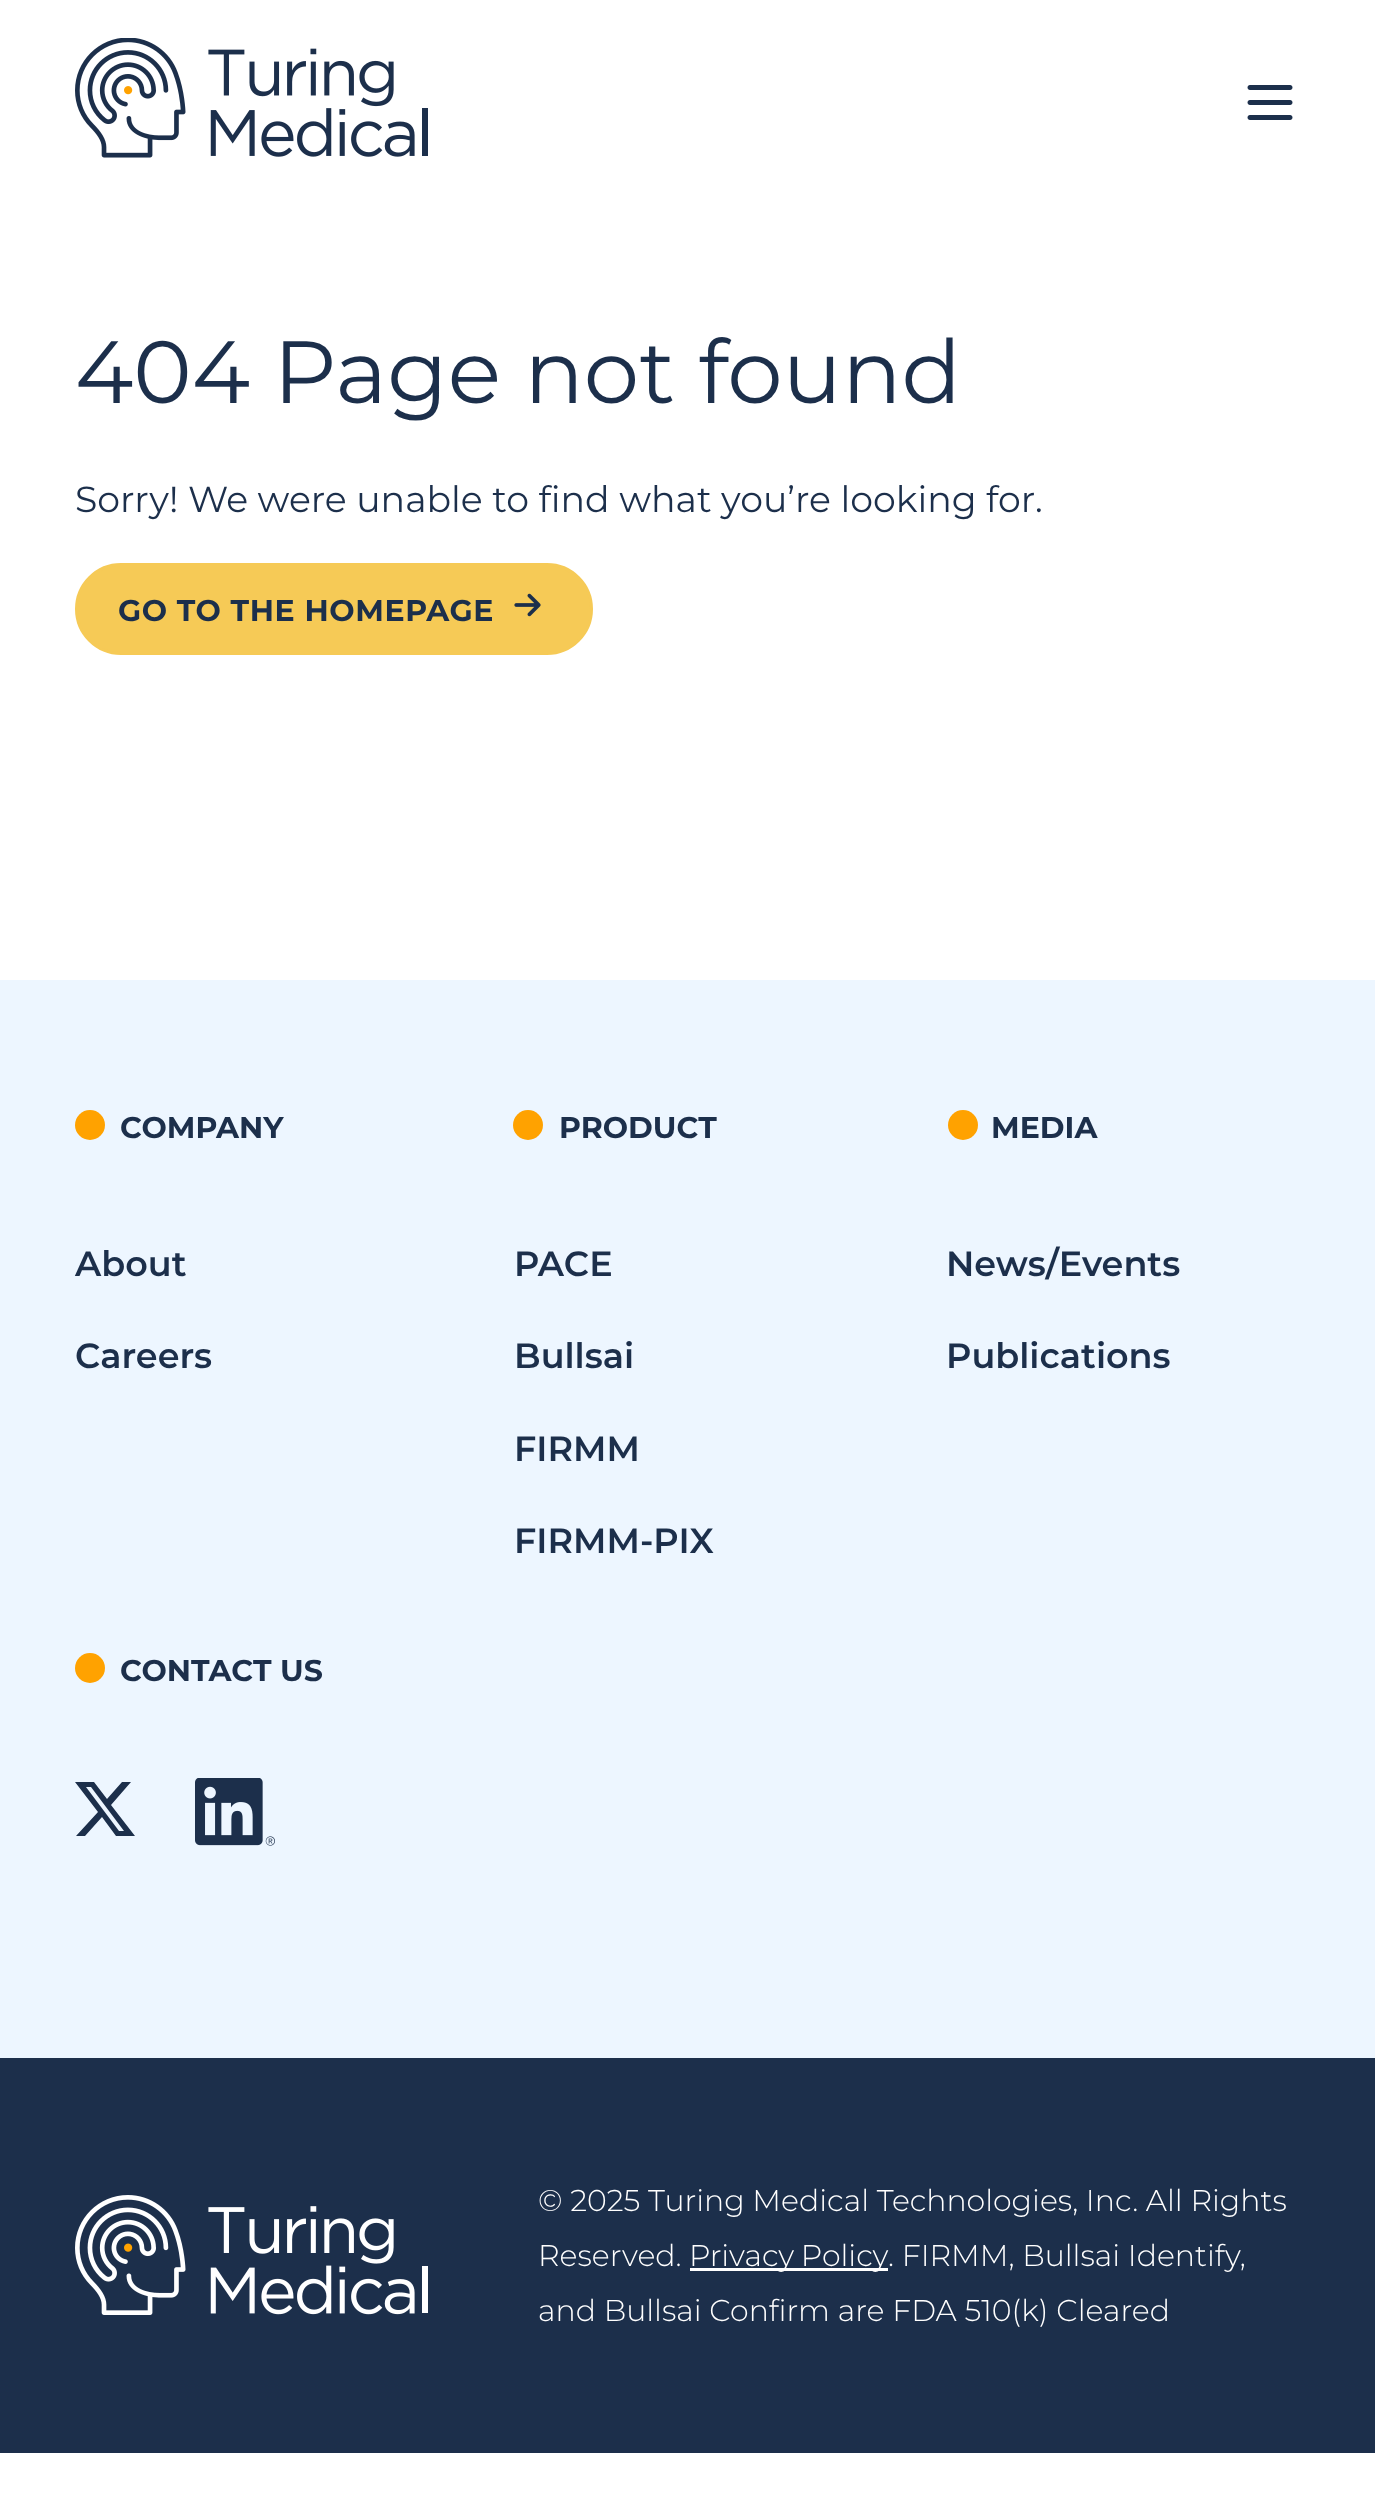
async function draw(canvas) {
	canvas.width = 1375;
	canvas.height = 2519;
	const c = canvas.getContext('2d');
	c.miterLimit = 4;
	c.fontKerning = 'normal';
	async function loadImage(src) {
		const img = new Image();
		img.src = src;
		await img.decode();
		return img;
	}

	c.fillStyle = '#fff';
	c.fillRect(0, 0, 1375, 2519);
	c.drawImage(await loadImage('img1.png'), 75, 38, 353, 120);
	c.drawImage(await loadImage('img2.png'), 1247, 85, 46, 35);
	c.font = '100 88.25px Montserrat';
	c.fillStyle = '#1c2f4b';
	c.fillText('404 Page not found', 75, 403);
	c.font = '100 36.25px Montserrat';
	c.fillText('Sorry! We were unable to find what you’re looking for.', 75, 512);
	c.fillStyle = '#f6ca56';
	c.beginPath();
	c.roundRect(76.5, 564.5, 515, 89, 44.5);
	c.fill();
	c.strokeStyle = '#f6ca56';
	c.lineWidth = 3;
	c.stroke();
	c.letterSpacing = '0.6px';
	c.font = '100 30px "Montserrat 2"';
	c.fillStyle = '#1c2f4b';
	c.fillText('GO TO THE HOMEPAGE', 118, 621);
	c.drawImage(await loadImage('img3.png'), 514, 593, 27, 24);
	c.fillRect(0, 2058, 1375, 395);
	c.fillStyle = '#edf6ff';
	c.fillRect(0, 980, 1375, 1078);
	c.fillStyle = '#ffa200';
	c.beginPath();
	c.arc(90, 1125, 15, 0, 2 * Math.PI);
	c.fill();
	c.letterSpacing = '0px';
	c.fillStyle = '#1c2f4b';
	c.fillText('COMPANY', 120, 1138);
	c.font = '100 35px "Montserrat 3"';
	c.fillText('About', 75, 1276);
	c.fillText('Careers', 75, 1368);
	c.fillStyle = '#ffa200';
	c.beginPath();
	c.arc(528, 1125, 15, 0, 2 * Math.PI);
	c.fill();
	c.font = '100 30px "Montserrat 2"';
	c.fillStyle = '#1c2f4b';
	c.fillText('PRODUCT', 559, 1138);
	c.font = '100 35px "Montserrat 3"';
	for (const [text, x, y] of [
		['PACE', 514, 1276],
		['Bullsai', 514, 1368],
		['FIRMM', 514, 1461],
		['FIRMM-PIX', 514, 1553],
	]) {
		c.fillText(text, x, y);
	}
	c.fillStyle = '#ffa200';
	c.beginPath();
	c.arc(963, 1125, 15, 0, 2 * Math.PI);
	c.fill();
	c.font = '100 30px "Montserrat 2"';
	c.fillStyle = '#1c2f4b';
	c.fillText('MEDIA', 991, 1138);
	c.font = '100 35px "Montserrat 3"';
	c.fillText('News/Events', 946, 1276);
	c.fillText('Publications', 946, 1368);
	c.fillStyle = '#ffa200';
	c.beginPath();
	c.arc(90, 1668, 15, 0, 2 * Math.PI);
	c.fill();
	c.font = '100 30px "Montserrat 2"';
	c.fillStyle = '#1c2f4b';
	c.fillText('CONTACT US', 120, 1681);
	c.beginPath();
	c.moveTo(122, 1782);
	c.lineTo(131, 1782);
	c.lineTo(111, 1805);
	c.lineTo(135, 1836);
	c.lineTo(116, 1836);
	c.lineTo(102, 1817);
	c.lineTo(85, 1836);
	c.lineTo(76, 1836);
	c.lineTo(98, 1812);
	c.lineTo(75, 1782);
	c.lineTo(94, 1782);
	c.lineTo(107, 1799);
	c.closePath();
	c.moveTo(119, 1831);
	c.lineTo(124, 1831);
	c.lineTo(91, 1787);
	c.lineTo(86, 1787);
	c.closePath();
	c.fill();
	c.drawImage(await loadImage('img4.png'), 195, 1778, 80, 68);
	c.drawImage(await loadImage('img5.png'), 75, 2195, 353, 120);
	c.font = '100 30px "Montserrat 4"';
	c.fillStyle = '#fff';
	c.fillText('© 2025 Turing Medical Technologies, Inc. All Rights', 538, 2211);
	c.fillText('Reserved.', 538, 2266);
	c.fillRect(690, 2268, 198, 3);
	c.wordSpacing = '-1px';
	c.fillText('Privacy Policy', 689, 2266);
	c.wordSpacing = '0px';
	c.fillText('. FIRMM, Bullsai Identify,', 888, 2266);
	c.fillText('and Bullsai Confirm are FDA 510(k) Cleared', 538, 2321);
}

draw(document.querySelector('canvas'));
